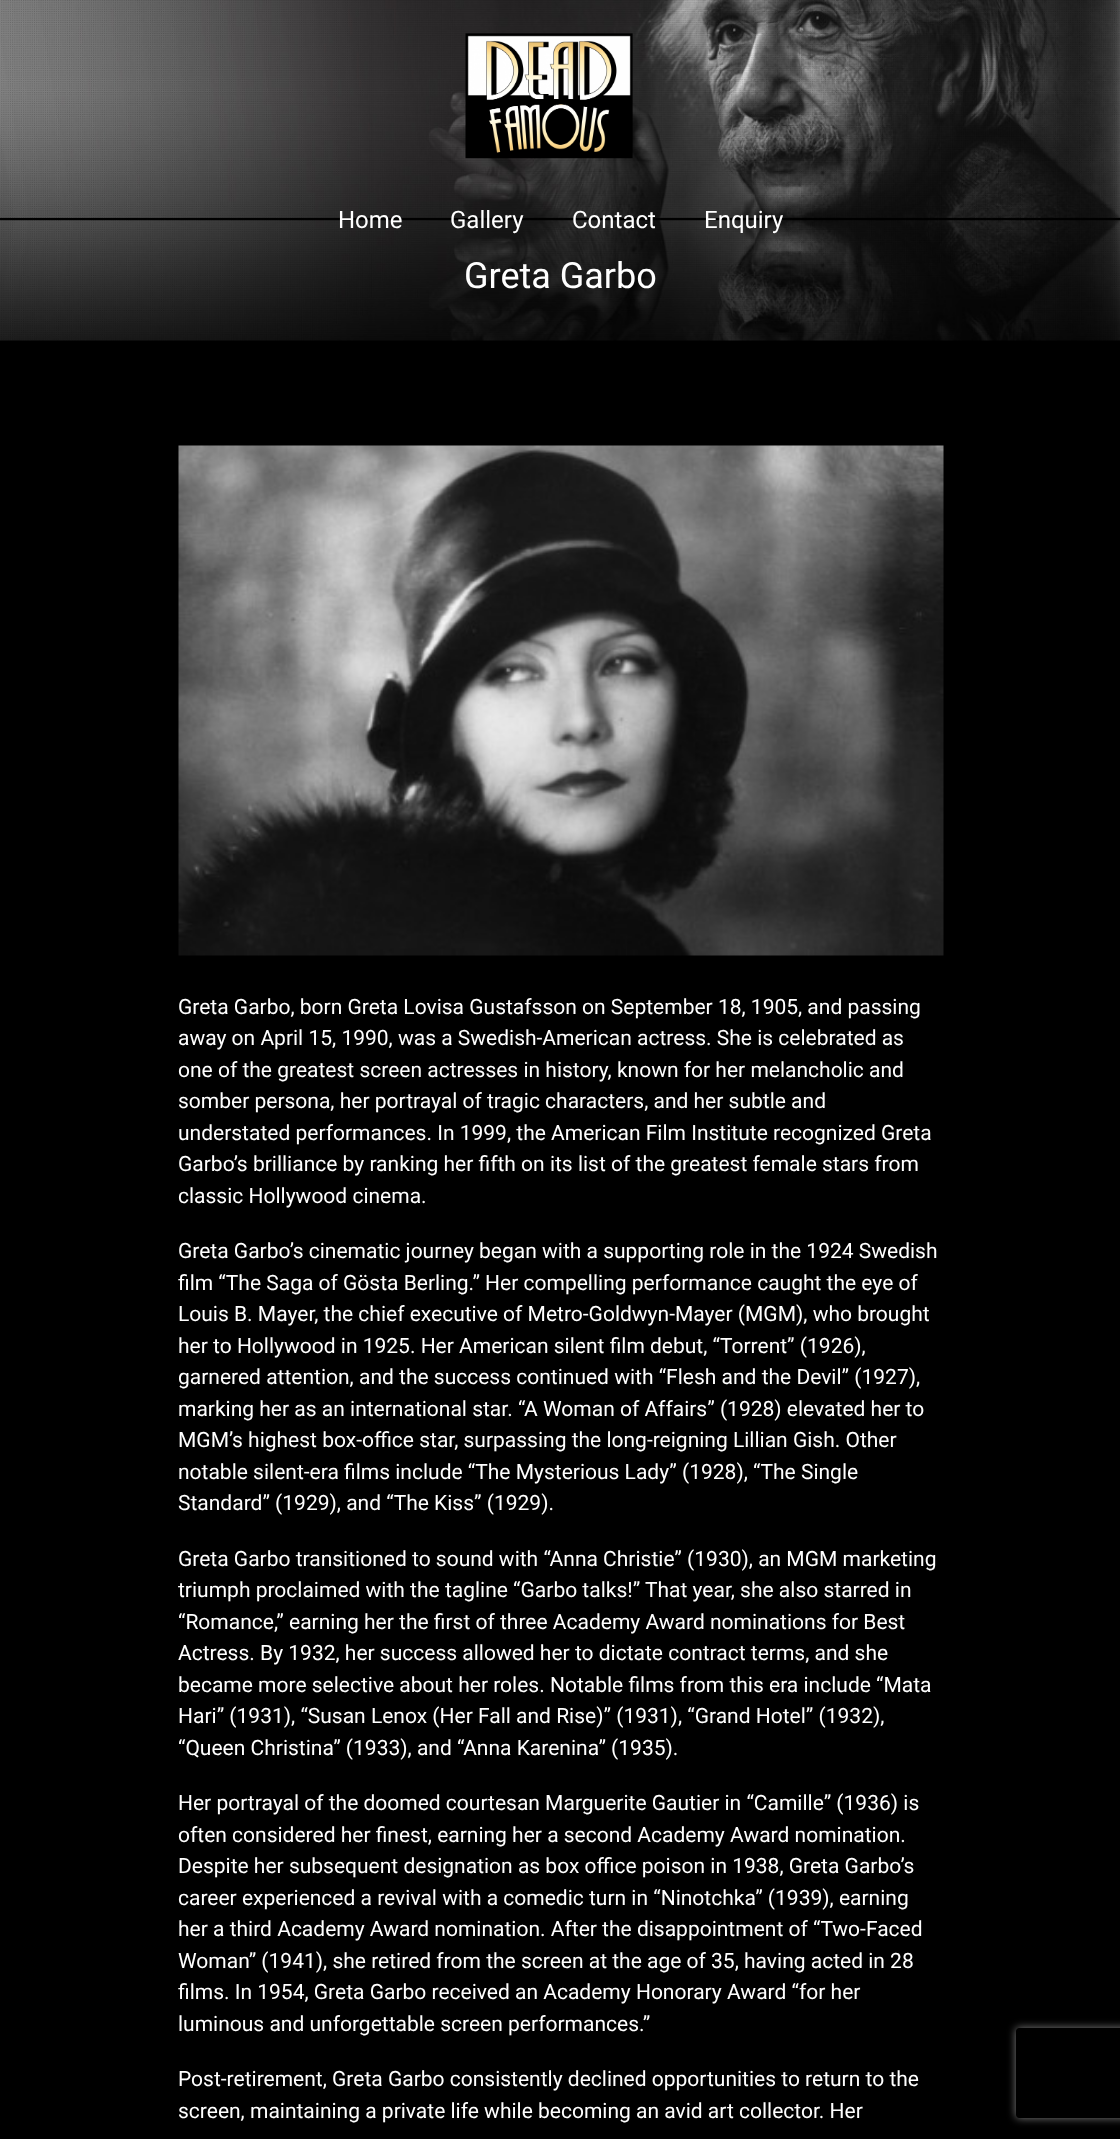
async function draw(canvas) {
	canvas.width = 1120;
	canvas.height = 2139;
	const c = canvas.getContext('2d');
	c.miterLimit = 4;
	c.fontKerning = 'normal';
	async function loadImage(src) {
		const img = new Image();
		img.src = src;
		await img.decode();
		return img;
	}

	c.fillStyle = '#000';
	c.fillRect(0, 0, 1120, 2139);
	c.drawImage(await loadImage('img2.png'), 0, 0, 1120, 341);
	c.drawImage(await loadImage('img1.png'), 465, 33, 168, 126);
	c.font = '24px Roboto';
	c.fillStyle = '#fff';
	for (const [text, x, y] of [
		['Home', 338, 228],
		['Gallery', 450, 228],
		['Contact', 572, 228],
		['Enquiry', 704, 228],
	]) {
		c.fillText(text, x, y);
	}
	c.font = '36px Roboto';
	c.fillText('Greta Garbo', 464, 288);
	c.drawImage(await loadImage('img3.png'), 178, 445, 766, 511);
	c.font = '21px Roboto';
	for (const [text, x, y] of [
		['Greta Garbo, born Greta Lovisa Gustafsson on September 18, 1905, and passing', 178, 1014],
		['away on April 15, 1990, was a Swedish-American actress. She is celebrated as', 178, 1045],
		['one of the greatest screen actresses in history, known for her melancholic and', 178, 1077],
		['somber persona, her portrayal of tragic characters, and her subtle and', 178, 1108],
		['understated performances. In 1999, the American Film Institute recognized Greta', 178, 1140],
		['Garbo’s brilliance by ranking her fifth on its list of the greatest female stars from', 178, 1171],
		['classic Hollywood cinema.', 178, 1203],
		['Greta Garbo’s cinematic journey began with a supporting role in the 1924 Swedish', 178, 1258],
		['film “The Saga of Gösta Berling.” Her compelling performance caught the eye of', 178, 1290],
		['Louis B. Mayer, the chief executive of Metro-Goldwyn-Mayer (MGM), who brought', 178, 1321],
		['her to Hollywood in 1925. Her American silent film debut, “Torrent” (1926),', 178, 1353],
		['garnered attention, and the success continued with “Flesh and the Devil” (1927),', 178, 1384],
		['marking her as an international star. “A Woman of Affairs” (1928) elevated her to', 178, 1416],
		['MGM’s highest box-office star, surpassing the long-reigning Lillian Gish. Other', 178, 1447],
		['notable silent-era films include “The Mysterious Lady” (1928), “The Single', 178, 1479],
		['Standard” (1929), and “The Kiss” (1929).', 178, 1510],
		['Greta Garbo transitioned to sound with “Anna Christie” (1930), an MGM marketing', 178, 1566],
		['triumph proclaimed with the tagline “Garbo talks!” That year, she also starred in', 178, 1597],
		['“Romance,” earning her the first of three Academy Award nominations for Best', 178, 1629],
		['Actress. By 1932, her success allowed her to dictate contract terms, and she', 178, 1660],
		['became more selective about her roles. Notable films from this era include “Mata', 178, 1692],
		['Hari” (1931), “Susan Lenox (Her Fall and Rise)” (1931), “Grand Hotel” (1932),', 178, 1723],
		['“Queen Christina” (1933), and “Anna Karenina” (1935).', 178, 1755],
		['Her portrayal of the doomed courtesan Marguerite Gautier in “Camille” (1936) is', 178, 1810],
		['often considered her finest, earning her a second Academy Award nomination.', 178, 1842],
		['Despite her subsequent designation as box office poison in 1938, Greta Garbo’s', 178, 1873],
		['career experienced a revival with a comedic turn in “Ninotchka” (1939), earning', 178, 1905],
		['her a third Academy Award nomination. After the disappointment of “Two-Faced', 178, 1936],
		['Woman” (1941), she retired from the screen at the age of 35, having acted in 28', 178, 1968],
		['films. In 1954, Greta Garbo received an Academy Honorary Award “for her', 178, 1999],
		['luminous and unforgettable screen performances.”', 178, 2031],
		['Post-retirement, Greta Garbo consistently declined opportunities to return to the', 178, 2086],
		['screen, maintaining a private life while becoming an avid art collector. Her', 178, 2118],
	]) {
		c.fillText(text, x, y);
	}
	c.save();
	c.beginPath();
	c.moveTo(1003, 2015);
	c.lineTo(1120, 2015);
	c.lineTo(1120, 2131);
	c.lineTo(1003, 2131);
	c.closePath();
	c.moveTo(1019, 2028);
	c.lineTo(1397, 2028);
	c.bezierCurveTo(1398.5, 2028, 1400, 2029.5, 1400, 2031);
	c.lineTo(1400, 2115);
	c.bezierCurveTo(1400, 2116.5, 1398.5, 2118, 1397, 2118);
	c.lineTo(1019, 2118);
	c.bezierCurveTo(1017.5, 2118, 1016, 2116.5, 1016, 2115);
	c.lineTo(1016, 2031);
	c.bezierCurveTo(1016, 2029.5, 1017.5, 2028, 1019, 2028);
	c.closePath();
	c.clip('evenodd');
	c.fillStyle = '#808080';
	c.filter = 'blur(4px)';
	c.beginPath();
	c.roundRect(1016, 2028, 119, 90, 3);
	c.fill();
	c.filter = 'none';
	c.restore();
}

draw(document.querySelector('canvas'));
